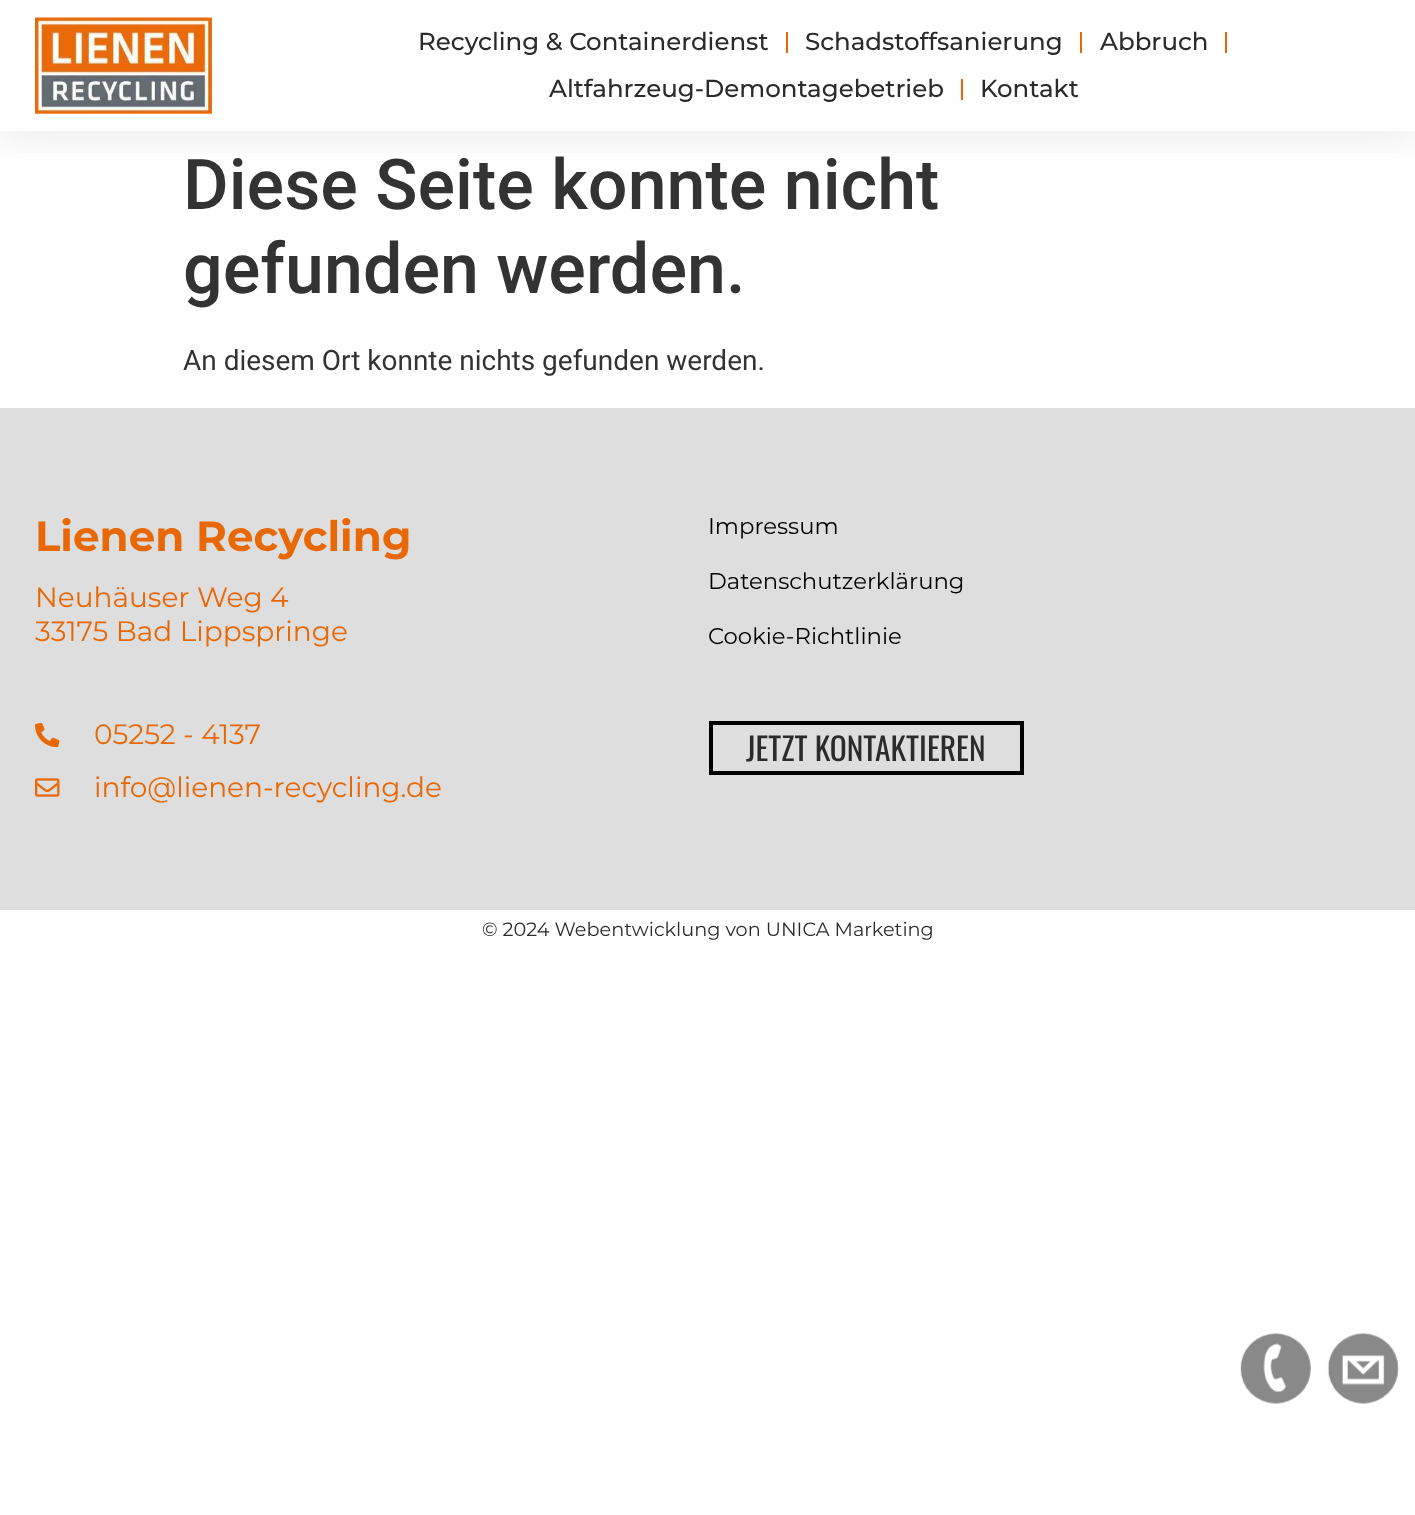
async function draw(canvas) {
	canvas.width = 1415;
	canvas.height = 1515;
	const c = canvas.getContext('2d');
	c.miterLimit = 4;
	c.fontKerning = 'normal';
	async function loadImage(src) {
		const img = new Image();
		img.src = src;
		await img.decode();
		return img;
	}

	c.fillStyle = '#fff';
	c.fillRect(0, 0, 1415, 1515);
	c.save();
	c.beginPath();
	c.rect(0, 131, 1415, 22);
	c.clip();
	c.fillStyle = '#0000001a';
	c.filter = 'blur(26px)';
	c.beginPath();
	c.rect(0, 0, 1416, 131);
	c.fill();
	c.filter = 'none';
	c.restore();
	c.drawImage(await loadImage('img1.png'), 35, 17, 177, 97);
	c.font = '500 24.5px Montserrat';
	c.fillStyle = '#2b2b2b';
	c.fillText('Recycling & Containerdienst', 418, 50);
	c.fillStyle = '#e96806';
	c.fillRect(786, 32, 2, 21);
	c.fillStyle = '#2b2b2b';
	c.fillText('Schadstoffsanierung', 805, 50);
	c.fillStyle = '#e96806';
	c.fillRect(1080, 32, 2, 21);
	c.fillStyle = '#2b2b2b';
	c.fillText('Abbruch', 1100, 50);
	c.fillStyle = '#e96806';
	c.fillRect(1225, 32, 2, 21);
	c.fillStyle = '#2b2b2b';
	c.fillText('Altfahrzeug-Demontagebetrieb', 549, 97);
	c.fillStyle = '#e96806';
	c.fillRect(961, 79, 2, 21);
	c.fillStyle = '#2b2b2b';
	c.fillText('Kontakt', 980, 97);
	c.drawImage(await loadImage('img2.png'), 1240, 1333, 71, 71);
	c.drawImage(await loadImage('img3.png'), 1327, 1333, 72, 71);
	c.font = '500 70px Roboto';
	c.fillStyle = '#333';
	c.fillText('Diese Seite konnte nicht', 183, 209);
	c.fillText('gefunden werden.', 183, 293);
	c.font = '28px Roboto';
	c.fillText('An diesem Ort konnte nichts gefunden werden.', 183, 370);
	c.fillStyle = '#dedede';
	c.fillRect(0, 408, 1415, 502);
	c.font = 'bold 42px Montserrat';
	c.fillStyle = '#e96806';
	c.fillText('Lienen Recycling', 35, 551);
	c.font = '28px Montserrat';
	c.fillText('Neuhäuser Weg 4', 35, 607);
	c.fillText('33175 Bad Lippspringe', 35, 641);
	c.drawImage(await loadImage('img4.png'), 35, 723, 25, 24);
	c.fillText('05252 - 4137', 94, 744);
	c.drawImage(await loadImage('img5.png'), 35, 778, 25, 19);
	c.fillText('info@lienen-recycling.de', 94, 797);
	c.font = '22.75px Montserrat';
	c.fillStyle = '#000';
	for (const [text, x, y] of [
		['Impressum', 708, 534],
		['Datenschutzerklärung', 708, 589],
		['Cookie-Richtlinie', 708, 644],
	]) {
		c.fillText(text, x, y);
	}
	c.strokeStyle = '#000';
	c.lineWidth = 4;
	c.strokeRect(711, 723, 311, 50);
	c.font = '31.5px Oswald';
	c.fillStyle = '#2b2b2b';
	c.fillText('JETZT KONTAKTIEREN', 746, 761);
	c.font = '19.25px Montserrat';
	c.fillText('© 2024 Webentwicklung von UNICA Marketing', 482, 936);
}

draw(document.querySelector('canvas'));
